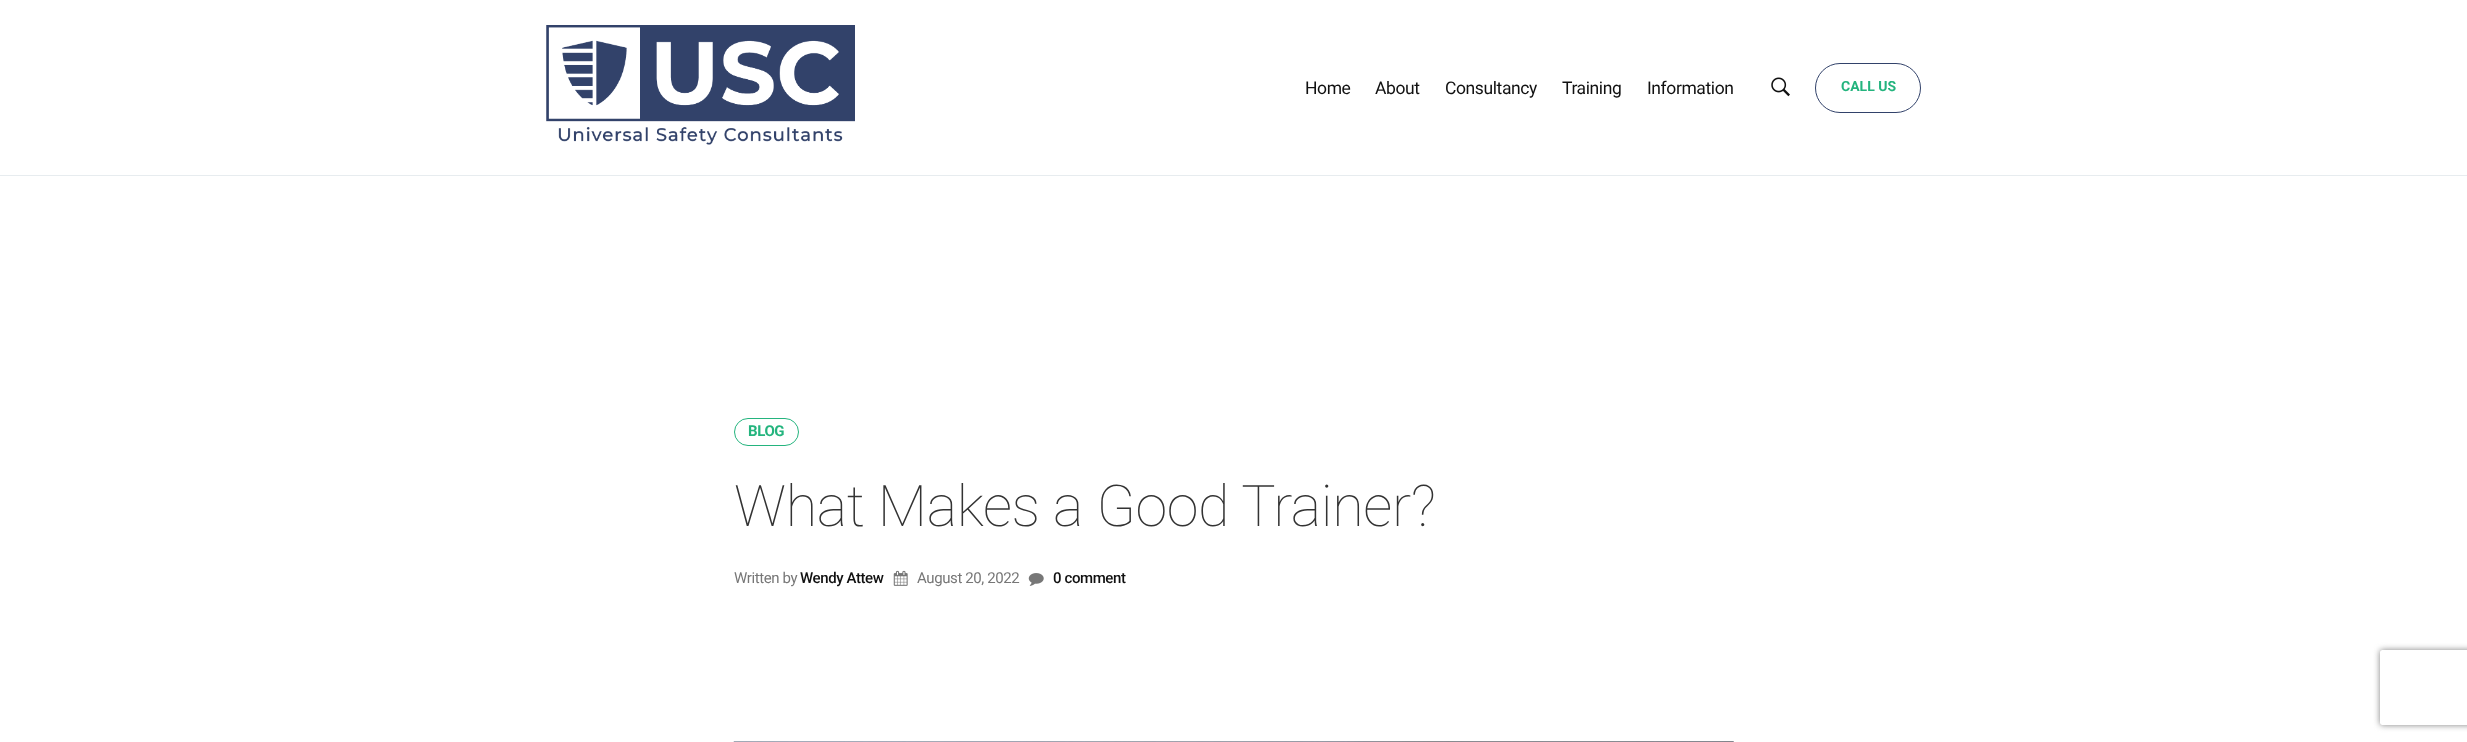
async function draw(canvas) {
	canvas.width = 2467;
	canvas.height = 742;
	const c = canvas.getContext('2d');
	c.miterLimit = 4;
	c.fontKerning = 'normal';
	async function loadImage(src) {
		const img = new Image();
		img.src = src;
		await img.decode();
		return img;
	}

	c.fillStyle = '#fff';
	c.fillRect(0, 0, 2467, 742);
	c.fillStyle = '#e7ecef';
	c.fillRect(0, 175, 2467, 1);
	c.drawImage(await loadImage('img1.png'), 546, 25, 309, 120);
	c.letterSpacing = '-0.4px';
	c.font = '17.5px Roboto';
	c.fillStyle = '#111';
	for (const [text, x, y] of [
		['Home', 1305, 94],
		['About', 1375, 94],
		['Consultancy', 1445, 94],
		['Training', 1562, 94],
		['Information', 1647, 94],
	]) {
		c.fillText(text, x, y);
	}
	c.drawImage(await loadImage('img2.png'), 1771, 77, 19, 20);
	c.beginPath();
	c.roundRect(1815.5, 63.5, 105, 49, 24.5);
	c.strokeStyle = '#32426a';
	c.stroke();
	c.letterSpacing = '0px';
	c.font = 'bold 14px Roboto';
	c.fillStyle = '#24b47e';
	c.fillText('CALL US', 1841, 91);
	c.beginPath();
	c.roundRect(734.5, 418.5, 64, 27, 13.5);
	c.strokeStyle = '#24b47e';
	c.stroke();
	c.letterSpacing = '-0.4px';
	c.font = 'bold 15px Roboto';
	c.fillText('BLOG', 748, 436);
	c.font = '100 57.5px Roboto';
	c.fillStyle = '#333';
	c.fillText('What Makes a Good Trainer?', 734, 526);
	c.font = '15px Roboto';
	c.fillStyle = '#777';
	c.fillText('Written by', 734, 583);
	c.font = '500 15px Roboto';
	c.fillStyle = '#111';
	c.fillText('Wendy Attew', 800, 583);
	c.drawImage(await loadImage('img3.png'), 893, 570, 15, 16);
	c.font = '15px Roboto';
	c.fillStyle = '#777';
	c.fillText('August 20, 2022', 917, 583);
	c.drawImage(await loadImage('img4.png'), 1028, 573, 16, 13);
	c.font = '500 15px Roboto';
	c.fillStyle = '#111';
	c.fillText('0 comment', 1053, 583);
	c.drawImage(await loadImage('img5.png'), 733, 741, 1001, 1);
	c.save();
	c.beginPath();
	c.moveTo(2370, 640);
	c.lineTo(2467, 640);
	c.lineTo(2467, 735);
	c.lineTo(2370, 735);
	c.closePath();
	c.moveTo(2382.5, 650);
	c.lineTo(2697.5, 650);
	c.bezierCurveTo(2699, 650, 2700, 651, 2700, 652.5);
	c.lineTo(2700, 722.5);
	c.bezierCurveTo(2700, 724, 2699, 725, 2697.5, 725);
	c.lineTo(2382.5, 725);
	c.bezierCurveTo(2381, 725, 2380, 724, 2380, 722.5);
	c.lineTo(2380, 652.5);
	c.bezierCurveTo(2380, 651, 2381, 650, 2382.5, 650);
	c.closePath();
	c.clip('evenodd');
	c.fillStyle = '#808080';
	c.filter = 'blur(3px)';
	c.beginPath();
	c.roundRect(2380, 650, 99, 75, 2.5);
	c.fill();
	c.filter = 'none';
	c.restore();
}

draw(document.querySelector('canvas'));
